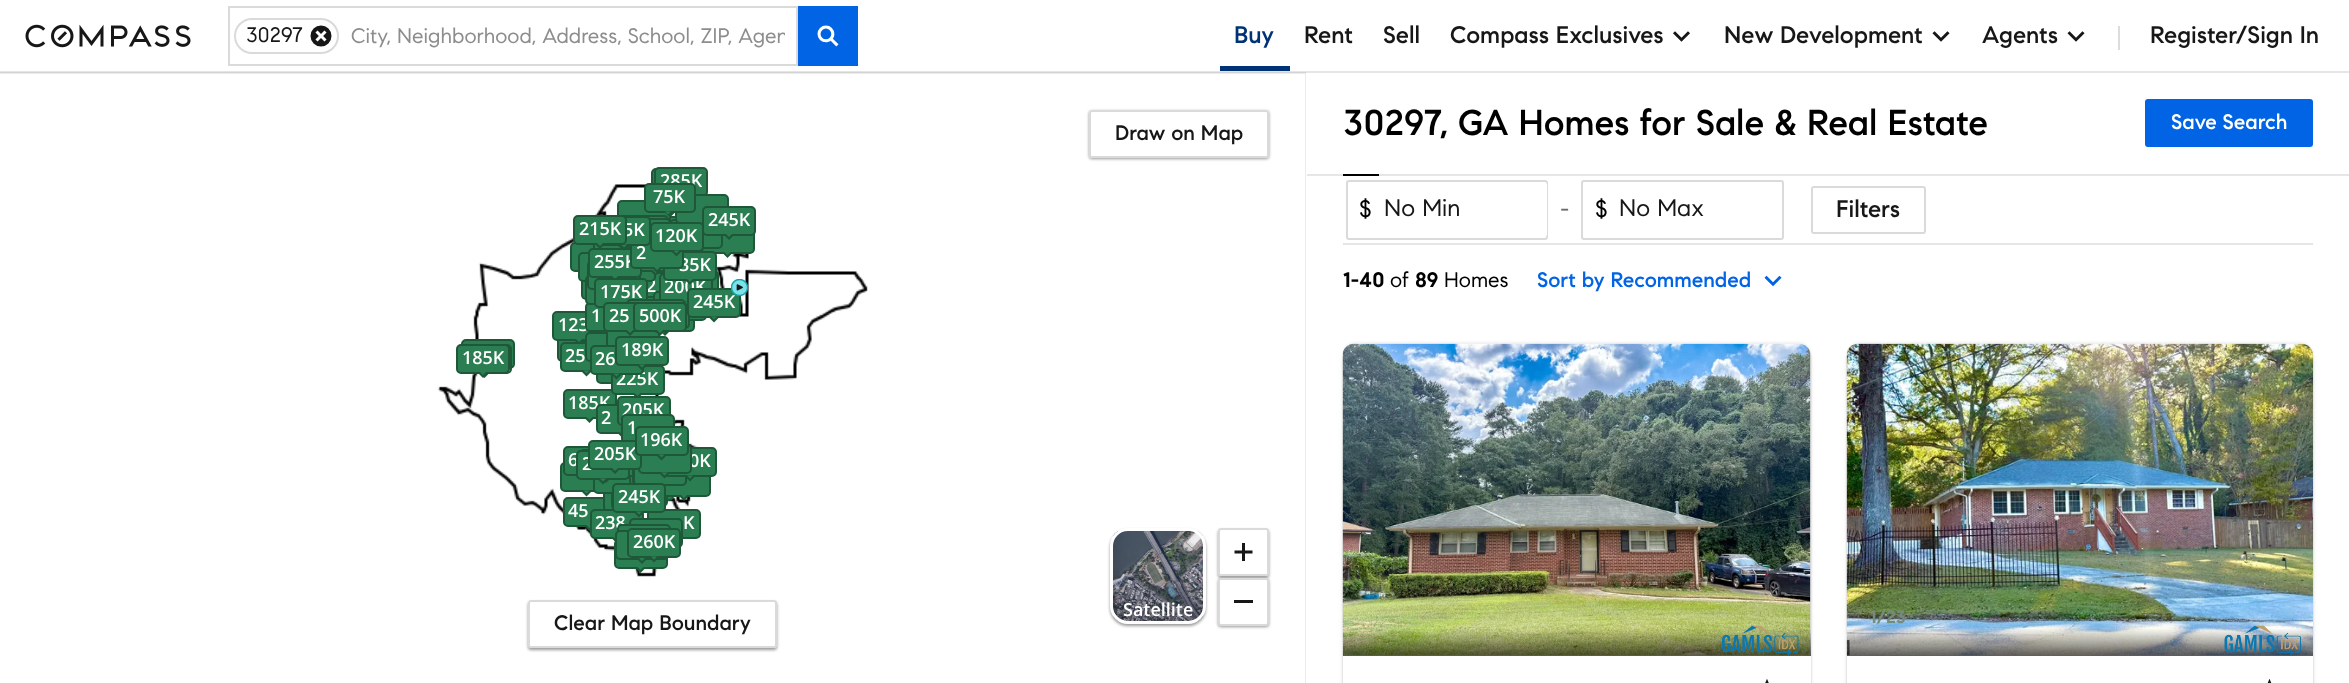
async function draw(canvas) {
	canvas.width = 2349;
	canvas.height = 683;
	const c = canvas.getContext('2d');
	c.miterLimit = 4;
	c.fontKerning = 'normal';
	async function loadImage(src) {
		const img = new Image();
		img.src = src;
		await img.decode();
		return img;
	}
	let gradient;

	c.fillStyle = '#fff';
	c.fillRect(0, 0, 2349, 683);
	c.fillStyle = '#ebebeb';
	c.beginPath();
	c.moveTo(0, 72);
	c.lineTo(1306, 72);
	c.lineTo(1305, 74);
	c.lineTo(0, 74);
	c.closePath();
	c.fill();
	c.fillStyle = '#00000014';
	c.beginPath();
	c.moveTo(1306, 72);
	c.lineTo(1306, 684);
	c.lineTo(1305, 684);
	c.lineTo(1305, 74);
	c.closePath();
	c.fill();
	c.fillStyle = '#0000001a';
	c.fillRect(0, 71, 2349, 2);
	c.drawImage(await loadImage('img1.png'), 25, 24, 166, 24);
	c.strokeStyle = '#dadada';
	c.lineWidth = 2;
	c.strokeRect(229, 7, 568, 58);
	c.beginPath();
	c.roundRect(235, 19, 103, 34, 17);
	c.stroke();
	c.font = '21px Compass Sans';
	c.fillStyle = '#171717';
	c.fillText('30297', 246, 42);
	c.drawImage(await loadImage('img2.png'), 310, 25, 22, 22);
	c.save();
	c.beginPath();
	c.rect(351, 24, 434, 26);
	c.clip();
	c.fillStyle = '#8d8d8d';
	c.fillText('City, Neighborhood, Address, School, ZIP, Agen', 351, 43);
	c.restore();
	c.fillStyle = '#0064e5';
	c.fillRect(798, 6, 60, 60);
	c.drawImage(await loadImage('img3.png'), 817, 25, 22, 22);
	c.fillStyle = '#003375';
	c.fillRect(1220, 66, 70, 5);
	c.font = '500 24px Compass Sans';
	c.fillText('Buy', 1234, 43);
	c.fillStyle = '#171717';
	for (const [text, x, y] of [
		['Rent', 1304, 43],
		['Sell', 1383, 43],
		['Compass Exclusives', 1450, 43],
	]) {
		c.fillText(text, x, y);
	}
	c.drawImage(await loadImage('img4.png'), 1673, 31, 17, 11);
	c.fillText('New Development', 1724, 43);
	c.drawImage(await loadImage('img5.png'), 1932, 31, 18, 11);
	c.fillText('Agents', 1982, 43);
	c.drawImage(await loadImage('img5.png'), 2067, 31, 18, 11);
	c.fillStyle = '#dcdcdc';
	c.fillRect(2118, 26, 2, 24);
	c.fillStyle = '#171717';
	c.fillText('Register/Sign In', 2150, 43);
	c.save();
	c.beginPath();
	c.moveTo(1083, 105);
	c.lineTo(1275, 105);
	c.lineTo(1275, 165);
	c.lineTo(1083, 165);
	c.closePath();
	c.moveTo(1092, 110);
	c.lineTo(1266, 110);
	c.bezierCurveTo(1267.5, 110, 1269, 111.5, 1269, 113);
	c.lineTo(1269, 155);
	c.bezierCurveTo(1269, 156.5, 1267.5, 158, 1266, 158);
	c.lineTo(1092, 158);
	c.bezierCurveTo(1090.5, 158, 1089, 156.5, 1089, 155);
	c.lineTo(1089, 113);
	c.bezierCurveTo(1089, 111.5, 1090.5, 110, 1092, 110);
	c.closePath();
	c.clip('evenodd');
	c.fillStyle = '#00000066';
	c.filter = 'blur(1.5px)';
	c.beginPath();
	c.roundRect(1089, 111, 180, 48, 3);
	c.fill();
	c.filter = 'none';
	c.restore();
	c.beginPath();
	c.roundRect(1090, 111, 178, 46, 2);
	c.stroke();
	c.font = '500 21px Compass Sans';
	c.fillText('Draw on Map', 1115, 140);
	c.fillStyle = '#00000066';
	c.filter = 'blur(1.5px)';
	c.beginPath();
	c.roundRect(1110, 530, 96, 96, 18);
	c.fill();
	c.filter = 'none';
	c.drawImage(await loadImage('img6.png'), 1113, 531, 90, 90);
	c.beginPath();
	c.roundRect(1111.5, 529.5, 93, 93, 16.5);
	c.strokeStyle = '#fff';
	c.lineWidth = 3;
	c.stroke();
	c.font = '600 18px Open Sans';
	c.fillStyle = '#fff';
	c.fillText('Satellite', 1123, 616);
	c.save();
	c.beginPath();
	c.moveTo(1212, 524);
	c.lineTo(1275, 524);
	c.lineTo(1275, 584);
	c.lineTo(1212, 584);
	c.closePath();
	c.moveTo(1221, 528);
	c.lineTo(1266, 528);
	c.bezierCurveTo(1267.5, 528, 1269, 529.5, 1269, 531);
	c.lineTo(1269, 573);
	c.bezierCurveTo(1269, 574.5, 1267.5, 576, 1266, 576);
	c.lineTo(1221, 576);
	c.bezierCurveTo(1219.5, 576, 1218, 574.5, 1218, 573);
	c.lineTo(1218, 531);
	c.bezierCurveTo(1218, 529.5, 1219.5, 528, 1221, 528);
	c.closePath();
	c.clip('evenodd');
	c.fillStyle = '#00000066';
	c.filter = 'blur(1.5px)';
	c.beginPath();
	c.roundRect(1218, 530, 51, 48, 3);
	c.fill();
	c.filter = 'none';
	c.restore();
	c.beginPath();
	c.roundRect(1219, 529, 49, 46, 2);
	c.strokeStyle = '#dadada';
	c.lineWidth = 2;
	c.stroke();
	c.drawImage(await loadImage('img7.png'), 1234, 543, 19, 18);
	c.fillStyle = '#00000066';
	c.filter = 'blur(1.5px)';
	c.beginPath();
	c.roundRect(1218, 579, 51, 48, 3);
	c.fill();
	c.filter = 'none';
	c.fillStyle = '#fff';
	c.beginPath();
	c.roundRect(1219, 579, 49, 46, 2);
	c.fill();
	c.stroke();
	c.fillStyle = '#171717';
	c.fillRect(1234, 600, 19, 3);
	c.save();
	c.beginPath();
	c.moveTo(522, 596);
	c.lineTo(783, 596);
	c.lineTo(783, 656);
	c.lineTo(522, 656);
	c.closePath();
	c.moveTo(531, 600);
	c.lineTo(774, 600);
	c.bezierCurveTo(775.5, 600, 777, 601.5, 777, 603);
	c.lineTo(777, 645);
	c.bezierCurveTo(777, 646.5, 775.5, 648, 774, 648);
	c.lineTo(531, 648);
	c.bezierCurveTo(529.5, 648, 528, 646.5, 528, 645);
	c.lineTo(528, 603);
	c.bezierCurveTo(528, 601.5, 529.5, 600, 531, 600);
	c.closePath();
	c.clip('evenodd');
	c.fillStyle = '#00000066';
	c.filter = 'blur(1.5px)';
	c.beginPath();
	c.roundRect(528, 602, 249, 48, 3);
	c.fill();
	c.filter = 'none';
	c.restore();
	c.beginPath();
	c.roundRect(529, 601, 247, 46, 2);
	c.stroke();
	c.font = '500 21px Compass Sans';
	c.fillText('Clear Map Boundary', 554, 630);
	c.drawImage(await loadImage('img8.png'), 437, 184, 431, 393);
	c.fillStyle = '#2a7e51';
	c.beginPath();
	c.roundRect(652, 169, 52, 28, 4);
	c.fill();
	c.strokeStyle = '#1e5839';
	c.stroke();
	c.beginPath();
	c.roundRect(655, 168, 52, 28, 4);
	c.fill();
	c.stroke();
	c.font = '600 18px Open Sans';
	c.fillStyle = '#fff';
	c.fillText('285K', 660, 187);
	c.fillStyle = '#2a7e51';
	c.fillRect(671, 218, 4, 2);
	c.strokeRect(655, 217, 52, 28);
	c.beginPath();
	c.roundRect(618, 201, 52, 28, 4);
	c.fill();
	c.stroke();
	c.beginPath();
	c.roundRect(702, 225, 52, 28, 4);
	c.fill();
	c.stroke();
	c.beginPath();
	c.roundRect(670, 220, 52, 28, 4);
	c.fill();
	c.stroke();
	c.beginPath();
	c.roundRect(676, 195, 52, 28, 4);
	c.fill();
	c.stroke();
	c.beginPath();
	c.roundRect(645, 184, 50, 28, 4);
	c.fill();
	c.stroke();
	c.fillStyle = '#fff';
	c.fillText('75K', 653, 203);
	c.fillStyle = '#2a7e51';
	c.fillRect(647, 274, 14, 22);
	c.strokeRect(642, 273, 52, 28);
	c.fillRect(648, 298, 5, 1);
	c.strokeRect(633, 297, 50, 28);
	c.beginPath();
	c.roundRect(582, 271, 52, 28, 4);
	c.fill();
	c.stroke();
	c.beginPath();
	c.roundRect(571, 243, 52, 28, 4);
	c.fill();
	c.stroke();
	c.beginPath();
	c.roundRect(616, 216, 52, 28, 4);
	c.fill();
	c.stroke();
	c.fillStyle = '#1e5839';
	c.beginPath();
	c.moveTo(664, 211.5);
	c.lineTo(676, 211.5);
	c.lineTo(670, 217.5);
	c.closePath();
	c.fill();
	c.fillStyle = '#2a7e51';
	c.beginPath();
	c.moveTo(665, 211.5);
	c.lineTo(671, 211.5);
	c.lineTo(668, 214.5);
	c.closePath();
	c.fill();
	c.beginPath();
	c.moveTo(699, 222);
	c.lineTo(705, 222);
	c.lineTo(702, 225);
	c.closePath();
	c.fill();
	c.fillRect(621, 245, 1, 2);
	c.beginPath();
	c.roundRect(579, 253, 52, 28, 4);
	c.fill();
	c.stroke();
	c.fillStyle = '#fff';
	c.fillText('2', 646, 292);
	c.fillStyle = '#2a7e51';
	c.beginPath();
	c.roundRect(603, 253, 52, 28, 4);
	c.fill();
	c.stroke();
	c.strokeRect(594, 241, 52, 28);
	c.fillRect(642, 269, 21, 1);
	c.beginPath();
	c.roundRect(666, 271, 52, 28, 4);
	c.fill();
	c.stroke();
	c.beginPath();
	c.roundRect(558, 333, 52, 28, 4);
	c.fill();
	c.stroke();
	c.fillStyle = '#1e5839';
	c.beginPath();
	c.moveTo(576, 339);
	c.lineTo(588, 339);
	c.lineTo(582, 345);
	c.closePath();
	c.fill();
	c.fillStyle = '#2a7e51';
	c.beginPath();
	c.roundRect(553, 312, 52, 28, 4);
	c.fill();
	c.stroke();
	c.fillStyle = '#fff';
	c.fillText('123', 558, 331);
	c.fillStyle = '#2a7e51';
	c.beginPath();
	c.roundRect(586, 303, 52, 28, 4);
	c.fill();
	c.stroke();
	c.beginPath();
	c.roundRect(636, 303, 58, 28, 4);
	c.fill();
	c.stroke();
	c.beginPath();
	c.roundRect(654, 292, 52, 28, 4);
	c.fill();
	c.stroke();
	c.beginPath();
	c.roundRect(622, 300, 67, 28, 4);
	c.fill();
	c.stroke();
	c.beginPath();
	c.roundRect(586, 276, 52, 28, 4);
	c.fill();
	c.stroke();
	c.beginPath();
	c.roundRect(588, 261, 52, 28, 4);
	c.fill();
	c.stroke();
	c.strokeRect(630, 243, 52, 28);
	c.beginPath();
	c.roundRect(618, 219, 52, 28, 4);
	c.fill();
	c.stroke();
	c.beginPath();
	c.roundRect(589, 249, 52, 28, 4);
	c.fill();
	c.stroke();
	c.fillStyle = '#fff';
	c.fillText('255K', 594, 268);
	c.fillStyle = '#2a7e51';
	c.beginPath();
	c.roundRect(660, 274, 52, 28, 4);
	c.fill();
	c.stroke();
	c.fillStyle = '#fff';
	c.fillText('200K', 664, 293);
	c.fillStyle = '#2a7e51';
	c.beginPath();
	c.roundRect(664, 252, 52, 28, 4);
	c.fill();
	c.stroke();
	c.fillStyle = '#fff';
	c.fillText('35K', 679, 271);
	c.fillStyle = '#2a7e51';
	c.beginPath();
	c.roundRect(631, 240, 52, 28, 4);
	c.fill();
	c.stroke();
	c.fillStyle = '#fff';
	c.fillText('2', 636, 259);
	c.fillStyle = '#2a7e51';
	c.beginPath();
	c.roundRect(598, 217, 52, 28, 4);
	c.fill();
	c.stroke();
	c.beginPath();
	c.roundRect(651, 223, 52, 28, 4);
	c.fill();
	c.stroke();
	c.beginPath();
	c.roundRect(703, 207, 52, 28, 4);
	c.fill();
	c.stroke();
	c.fillStyle = '#fff';
	c.fillText('245K', 708, 226);
	c.fillStyle = '#1e5839';
	c.beginPath();
	c.moveTo(723, 234);
	c.lineTo(735, 234);
	c.lineTo(729, 240);
	c.closePath();
	c.fill();
	c.fillStyle = '#2a7e51';
	c.beginPath();
	c.moveTo(726, 234);
	c.lineTo(732, 234);
	c.lineTo(729, 237);
	c.closePath();
	c.fill();
	c.fillStyle = '#fff';
	c.fillText('5K', 623, 236);
	c.fillStyle = '#1e5839';
	c.beginPath();
	c.moveTo(618, 244.5);
	c.lineTo(630, 244.5);
	c.lineTo(624, 250.5);
	c.closePath();
	c.fill();
	c.fillStyle = '#2a7e51';
	c.beginPath();
	c.moveTo(621, 244.5);
	c.lineTo(627, 244.5);
	c.lineTo(624, 247.5);
	c.closePath();
	c.fill();
	c.beginPath();
	c.roundRect(574, 216, 52, 28, 4);
	c.fill();
	c.stroke();
	c.fillStyle = '#fff';
	c.fillText('215K', 579, 235);
	c.fillStyle = '#1e5839';
	c.beginPath();
	c.moveTo(594, 243);
	c.lineTo(606, 243);
	c.lineTo(600, 249);
	c.closePath();
	c.fill();
	c.fillStyle = '#2a7e51';
	c.beginPath();
	c.moveTo(597, 243);
	c.lineTo(603, 243);
	c.lineTo(600, 246);
	c.closePath();
	c.fill();
	c.fillStyle = '#fff';
	c.fillText('120K', 655, 242);
	c.fillStyle = '#1e5839';
	c.beginPath();
	c.moveTo(670.5, 250.5);
	c.lineTo(682.5, 250.5);
	c.lineTo(676.5, 256.5);
	c.closePath();
	c.fill();
	c.fillStyle = '#2a7e51';
	c.beginPath();
	c.moveTo(673.5, 250.5);
	c.lineTo(679.5, 250.5);
	c.lineTo(676.5, 253.5);
	c.closePath();
	c.fill();
	c.fillStyle = '#1e5839';
	c.beginPath();
	c.moveTo(721.5, 252);
	c.lineTo(733.5, 252);
	c.lineTo(727.5, 258);
	c.closePath();
	c.fill();
	c.fillStyle = '#2a7e51';
	c.beginPath();
	c.moveTo(724.5, 252);
	c.lineTo(730.5, 252);
	c.lineTo(727.5, 255);
	c.closePath();
	c.fill();
	c.fillStyle = '#1e5839';
	c.beginPath();
	c.moveTo(649.5, 270);
	c.lineTo(661.5, 270);
	c.lineTo(655.5, 276);
	c.closePath();
	c.fill();
	c.fillStyle = '#2a7e51';
	c.beginPath();
	c.moveTo(652.5, 270);
	c.lineTo(658.5, 270);
	c.lineTo(655.5, 273);
	c.closePath();
	c.fill();
	c.fillStyle = '#1e5839';
	c.beginPath();
	c.moveTo(651, 267);
	c.lineTo(663, 267);
	c.lineTo(657, 273);
	c.closePath();
	c.fill();
	c.fillStyle = '#2a7e51';
	c.beginPath();
	c.moveTo(654, 267);
	c.lineTo(660, 267);
	c.lineTo(657, 270);
	c.closePath();
	c.fill();
	c.fillStyle = '#1e5839';
	c.beginPath();
	c.moveTo(609, 276);
	c.lineTo(621, 276);
	c.lineTo(615, 282);
	c.closePath();
	c.fill();
	c.fillStyle = '#2a7e51';
	c.beginPath();
	c.moveTo(612, 276);
	c.lineTo(618, 276);
	c.lineTo(615, 279);
	c.closePath();
	c.fill();
	c.fillStyle = '#1e5839';
	c.beginPath();
	c.moveTo(684, 279);
	c.lineTo(696, 279);
	c.lineTo(690, 285);
	c.closePath();
	c.fill();
	c.fillStyle = '#2a7e51';
	c.beginPath();
	c.moveTo(687, 279);
	c.lineTo(693, 279);
	c.lineTo(690, 282);
	c.closePath();
	c.fill();
	c.fillStyle = '#1e5839';
	c.beginPath();
	c.moveTo(679.5, 301.5);
	c.lineTo(691.5, 301.5);
	c.lineTo(685.5, 307.5);
	c.closePath();
	c.fill();
	c.fillStyle = '#2a7e51';
	c.beginPath();
	c.moveTo(682.5, 301.5);
	c.lineTo(688.5, 301.5);
	c.lineTo(685.5, 304.5);
	c.closePath();
	c.fill();
	c.beginPath();
	c.roundRect(595, 279, 52, 28, 4);
	c.fill();
	c.stroke();
	c.fillStyle = '#fff';
	c.fillText('175K', 600, 298);
	c.fillStyle = '#2a7e51';
	c.beginPath();
	c.roundRect(688, 289, 52, 28, 4);
	c.fill();
	c.stroke();
	c.fillStyle = '#fff';
	c.fillText('245K', 693, 308);
	c.drawImage(await loadImage('img9.png'), 731, 279, 18, 18);
	c.fillStyle = '#1e5839';
	c.beginPath();
	c.moveTo(708, 316.5);
	c.lineTo(720, 316.5);
	c.lineTo(714, 322.5);
	c.closePath();
	c.fill();
	c.fillStyle = '#2a7e51';
	c.beginPath();
	c.moveTo(711, 316.5);
	c.lineTo(717, 316.5);
	c.lineTo(714, 319.5);
	c.closePath();
	c.fill();
	c.fillStyle = '#1e5839';
	c.beginPath();
	c.moveTo(659, 330);
	c.lineTo(671, 330);
	c.lineTo(665, 336);
	c.closePath();
	c.fill();
	c.beginPath();
	c.moveTo(573, 339);
	c.lineTo(585, 339);
	c.lineTo(579, 345);
	c.closePath();
	c.fill();
	c.fillStyle = '#2a7e51';
	c.beginPath();
	c.roundRect(561, 343, 52, 28, 4);
	c.fill();
	c.stroke();
	c.beginPath();
	c.roundRect(586, 333, 52, 28, 4);
	c.fill();
	c.stroke();
	c.fillRect(606, 331, 52, 14);
	c.strokeRect(607, 328, 52, 28);
	c.beginPath();
	c.roundRect(627, 300, 58, 28, 4);
	c.fill();
	c.stroke();
	c.beginPath();
	c.moveTo(660.5, 330);
	c.lineTo(666.5, 330);
	c.lineTo(663.5, 333);
	c.closePath();
	c.fill();
	c.fillStyle = '#1e5839';
	c.beginPath();
	c.moveTo(650, 327);
	c.lineTo(662, 327);
	c.lineTo(656, 333);
	c.closePath();
	c.fill();
	c.fillStyle = '#2a7e51';
	c.beginPath();
	c.roundRect(604, 303, 52, 28, 4);
	c.fill();
	c.stroke();
	c.fillStyle = '#fff';
	c.fillText('25', 609, 322);
	c.fillStyle = '#1e5839';
	c.beginPath();
	c.moveTo(624, 330);
	c.lineTo(636, 330);
	c.lineTo(630, 336);
	c.closePath();
	c.fill();
	c.fillStyle = '#2a7e51';
	c.beginPath();
	c.moveTo(627, 330);
	c.lineTo(633, 330);
	c.lineTo(630, 333);
	c.closePath();
	c.fill();
	c.fillStyle = '#fff';
	c.fillText('1', 591, 322);
	c.fillStyle = '#2a7e51';
	c.beginPath();
	c.roundRect(634, 303, 52, 28, 4);
	c.fill();
	c.stroke();
	c.fillStyle = '#fff';
	c.fillText('500K', 639, 322);
	c.fillStyle = '#1e5839';
	c.beginPath();
	c.moveTo(654, 330);
	c.lineTo(666, 330);
	c.lineTo(660, 336);
	c.closePath();
	c.fill();
	c.fillStyle = '#2a7e51';
	c.beginPath();
	c.moveTo(657, 330);
	c.lineTo(663, 330);
	c.lineTo(660, 333);
	c.closePath();
	c.fill();
	c.beginPath();
	c.moveTo(576, 339);
	c.lineTo(582, 339);
	c.lineTo(579, 342);
	c.closePath();
	c.fill();
	c.beginPath();
	c.roundRect(462, 340, 52, 28, 4);
	c.fill();
	c.stroke();
	c.beginPath();
	c.roundRect(459, 345, 52, 28, 4);
	c.stroke();
	c.fillStyle = '#1e5839';
	c.beginPath();
	c.moveTo(478.5, 372);
	c.lineTo(490.5, 372);
	c.lineTo(484.5, 378);
	c.closePath();
	c.fill();
	c.fillStyle = '#fff';
	c.fillText('25', 565, 362);
	c.fillStyle = '#1e5839';
	c.beginPath();
	c.moveTo(580.5, 370.5);
	c.lineTo(592.5, 370.5);
	c.lineTo(586.5, 376.5);
	c.closePath();
	c.fill();
	c.fillStyle = '#2a7e51';
	c.beginPath();
	c.moveTo(583.5, 370.5);
	c.lineTo(589.5, 370.5);
	c.lineTo(586.5, 373.5);
	c.closePath();
	c.fill();
	c.beginPath();
	c.roundRect(597, 355, 52, 28, 4);
	c.fill();
	c.stroke();
	c.beginPath();
	c.roundRect(564, 390, 52, 28, 4);
	c.fill();
	c.stroke();
	c.beginPath();
	c.roundRect(612, 366, 52, 28, 4);
	c.fill();
	c.stroke();
	c.fillStyle = '#fff';
	c.fillText('225K', 616, 385);
	c.fillStyle = '#2a7e51';
	c.beginPath();
	c.roundRect(591, 346, 52, 28, 4);
	c.fill();
	c.stroke();
	c.fillStyle = '#fff';
	c.fillText('26', 595, 365);
	c.fillStyle = '#2a7e51';
	c.beginPath();
	c.roundRect(616, 337, 52, 28, 4);
	c.fill();
	c.stroke();
	c.fillStyle = '#fff';
	c.fillText('189K', 621, 356);
	c.fillStyle = '#1e5839';
	c.beginPath();
	c.moveTo(636, 364.5);
	c.lineTo(648, 364.5);
	c.lineTo(642, 370.5);
	c.closePath();
	c.fill();
	c.fillStyle = '#2a7e51';
	c.beginPath();
	c.moveTo(639, 364.5);
	c.lineTo(645, 364.5);
	c.lineTo(642, 367.5);
	c.closePath();
	c.fill();
	c.beginPath();
	c.roundRect(457, 345, 52, 28, 4);
	c.fill();
	c.stroke();
	c.fillStyle = '#fff';
	c.fillText('185K', 462, 364);
	c.fillStyle = '#1e5839';
	c.beginPath();
	c.moveTo(477, 372);
	c.lineTo(489, 372);
	c.lineTo(483, 378);
	c.closePath();
	c.fill();
	c.fillStyle = '#2a7e51';
	c.beginPath();
	c.moveTo(480, 372);
	c.lineTo(486, 372);
	c.lineTo(483, 375);
	c.closePath();
	c.fill();
	c.fillStyle = '#1e5839';
	c.beginPath();
	c.moveTo(610.5, 373.5);
	c.lineTo(622.5, 373.5);
	c.lineTo(616.5, 379.5);
	c.closePath();
	c.fill();
	c.fillStyle = '#2a7e51';
	c.beginPath();
	c.moveTo(613.5, 373.5);
	c.lineTo(619.5, 373.5);
	c.lineTo(616.5, 376.5);
	c.closePath();
	c.fill();
	c.fillStyle = '#1e5839';
	c.beginPath();
	c.moveTo(631.5, 393);
	c.lineTo(643.5, 393);
	c.lineTo(637.5, 399);
	c.closePath();
	c.fill();
	c.fillStyle = '#2a7e51';
	c.beginPath();
	c.moveTo(634.5, 393);
	c.lineTo(640.5, 393);
	c.lineTo(637.5, 396);
	c.closePath();
	c.fill();
	c.fillStyle = '#fff';
	c.fillText('185K', 568, 409);
	c.fillStyle = '#1e5839';
	c.beginPath();
	c.moveTo(583.5, 417);
	c.lineTo(595.5, 417);
	c.lineTo(589.5, 423);
	c.closePath();
	c.fill();
	c.fillStyle = '#2a7e51';
	c.beginPath();
	c.moveTo(586.5, 417);
	c.lineTo(592.5, 417);
	c.lineTo(589.5, 420);
	c.closePath();
	c.fill();
	c.beginPath();
	c.roundRect(597, 405, 52, 28, 4);
	c.fill();
	c.stroke();
	c.beginPath();
	c.roundRect(618, 397, 52, 28, 4);
	c.fill();
	c.stroke();
	c.fillStyle = '#fff';
	c.fillText('205K', 622, 416);
	c.fillText('2', 601, 424);
	c.fillStyle = '#1e5839';
	c.beginPath();
	c.moveTo(616.5, 432);
	c.lineTo(628.5, 432);
	c.lineTo(622.5, 438);
	c.closePath();
	c.fill();
	c.fillStyle = '#2a7e51';
	c.beginPath();
	c.moveTo(619.5, 432);
	c.lineTo(625.5, 432);
	c.lineTo(622.5, 435);
	c.closePath();
	c.fill();
	c.beginPath();
	c.roundRect(622, 415, 52, 28, 4);
	c.fill();
	c.stroke();
	c.fillStyle = '#fff';
	c.fillText('1', 627, 434);
	c.fillStyle = '#2a7e51';
	c.beginPath();
	c.roundRect(561, 463, 52, 28, 4);
	c.fill();
	c.stroke();
	c.beginPath();
	c.roundRect(564, 447, 52, 28, 4);
	c.fill();
	c.stroke();
	c.beginPath();
	c.roundRect(621, 472, 52, 28, 4);
	c.fill();
	c.stroke();
	c.beginPath();
	c.roundRect(564, 498, 52, 28, 4);
	c.fill();
	c.stroke();
	c.beginPath();
	c.roundRect(604, 483, 52, 28, 4);
	c.fill();
	c.stroke();
	c.beginPath();
	c.roundRect(615, 478, 52, 28, 4);
	c.stroke();
	c.beginPath();
	c.roundRect(612, 481, 52, 28, 4);
	c.stroke();
	c.beginPath();
	c.roundRect(594, 465, 52, 28, 4);
	c.fill();
	c.stroke();
	c.beginPath();
	c.roundRect(580, 450, 52, 28, 4);
	c.stroke();
	c.beginPath();
	c.roundRect(658, 468, 52, 28, 4);
	c.fill();
	c.stroke();
	c.beginPath();
	c.roundRect(630, 457, 52, 28, 4);
	c.fill();
	c.stroke();
	c.fillRect(630, 470, 1, 5);
	c.strokeRect(612, 448, 52, 28);
	c.beginPath();
	c.roundRect(633, 457, 52, 28, 4);
	c.stroke();
	c.beginPath();
	c.roundRect(634, 457, 52, 28, 4);
	c.fill();
	c.stroke();
	c.beginPath();
	c.roundRect(664, 448, 52, 28, 4);
	c.fill();
	c.stroke();
	c.fillStyle = '#fff';
	c.fillText('0K', 689, 467);
	c.fillStyle = '#2a7e51';
	c.beginPath();
	c.roundRect(639, 445, 52, 28, 4);
	c.fill();
	c.stroke();
	c.fillStyle = '#fff';
	c.fillText('6', 568, 466);
	c.fillStyle = '#1e5839';
	c.beginPath();
	c.moveTo(600, 477);
	c.lineTo(612, 477);
	c.lineTo(606, 483);
	c.closePath();
	c.fill();
	c.fillStyle = '#2a7e51';
	c.beginPath();
	c.roundRect(577, 451, 52, 28, 4);
	c.fill();
	c.stroke();
	c.fillStyle = '#fff';
	c.fillText('2', 582, 470);
	c.fillStyle = '#2a7e51';
	c.beginPath();
	c.roundRect(589, 441, 52, 28, 4);
	c.fill();
	c.stroke();
	c.fillStyle = '#fff';
	c.fillText('205K', 594, 460);
	c.fillStyle = '#2a7e51';
	c.beginPath();
	c.roundRect(636, 427, 52, 28, 4);
	c.fill();
	c.stroke();
	c.fillStyle = '#fff';
	c.fillText('196K', 640, 446);
	c.fillStyle = '#1e5839';
	c.beginPath();
	c.moveTo(655.5, 454.5);
	c.lineTo(667.5, 454.5);
	c.lineTo(661.5, 460.5);
	c.closePath();
	c.fill();
	c.fillStyle = '#2a7e51';
	c.beginPath();
	c.moveTo(658.5, 454.5);
	c.lineTo(664.5, 454.5);
	c.lineTo(661.5, 457.5);
	c.closePath();
	c.fill();
	c.fillStyle = '#1e5839';
	c.beginPath();
	c.moveTo(609, 468);
	c.lineTo(621, 468);
	c.lineTo(615, 474);
	c.closePath();
	c.fill();
	c.fillStyle = '#2a7e51';
	c.beginPath();
	c.moveTo(612, 468);
	c.lineTo(618, 468);
	c.lineTo(615, 471);
	c.closePath();
	c.fill();
	c.fillStyle = '#1e5839';
	c.beginPath();
	c.moveTo(658.5, 472.5);
	c.lineTo(670.5, 472.5);
	c.lineTo(664.5, 478.5);
	c.closePath();
	c.fill();
	c.fillStyle = '#2a7e51';
	c.beginPath();
	c.moveTo(661.5, 472.5);
	c.lineTo(667.5, 472.5);
	c.lineTo(664.5, 475.5);
	c.closePath();
	c.fill();
	c.fillStyle = '#1e5839';
	c.beginPath();
	c.moveTo(684, 475.5);
	c.lineTo(696, 475.5);
	c.lineTo(690, 481.5);
	c.closePath();
	c.fill();
	c.fillStyle = '#2a7e51';
	c.beginPath();
	c.moveTo(687, 475.5);
	c.lineTo(693, 475.5);
	c.lineTo(690, 478.5);
	c.closePath();
	c.fill();
	c.fillStyle = '#1e5839';
	c.beginPath();
	c.moveTo(597, 478.5);
	c.lineTo(609, 478.5);
	c.lineTo(603, 484.5);
	c.closePath();
	c.fill();
	c.fillStyle = '#2a7e51';
	c.beginPath();
	c.moveTo(600, 478.5);
	c.lineTo(606, 478.5);
	c.lineTo(603, 481.5);
	c.closePath();
	c.fill();
	c.fillStyle = '#1e5839';
	c.beginPath();
	c.moveTo(580.5, 490.5);
	c.lineTo(592.5, 490.5);
	c.lineTo(586.5, 496.5);
	c.closePath();
	c.fill();
	c.fillStyle = '#2a7e51';
	c.beginPath();
	c.moveTo(583.5, 490.5);
	c.lineTo(589.5, 490.5);
	c.lineTo(586.5, 493.5);
	c.closePath();
	c.fill();
	c.fillStyle = '#1e5839';
	c.beginPath();
	c.moveTo(654, 484.5);
	c.lineTo(666, 484.5);
	c.lineTo(660, 490.5);
	c.closePath();
	c.fill();
	c.beginPath();
	c.moveTo(678, 495);
	c.lineTo(690, 495);
	c.lineTo(684, 501);
	c.closePath();
	c.fill();
	c.fillStyle = '#2a7e51';
	c.beginPath();
	c.moveTo(681, 495);
	c.lineTo(687, 495);
	c.lineTo(684, 498);
	c.closePath();
	c.fill();
	c.fillStyle = '#1e5839';
	c.beginPath();
	c.moveTo(583.5, 525);
	c.lineTo(595.5, 525);
	c.lineTo(589.5, 531);
	c.closePath();
	c.fill();
	c.fillStyle = '#2a7e51';
	c.beginPath();
	c.moveTo(586.5, 525);
	c.lineTo(592.5, 525);
	c.lineTo(589.5, 528);
	c.closePath();
	c.fill();
	c.beginPath();
	c.roundRect(591, 510, 52, 28, 4);
	c.fill();
	c.stroke();
	c.beginPath();
	c.roundRect(648, 510, 52, 28, 4);
	c.fill();
	c.stroke();
	c.beginPath();
	c.roundRect(613, 484, 52, 28, 4);
	c.fill();
	c.stroke();
	c.fillStyle = '#fff';
	c.fillText('245K', 618, 503);
	c.fillStyle = '#1e5839';
	c.beginPath();
	c.moveTo(633, 511.5);
	c.lineTo(645, 511.5);
	c.lineTo(639, 517.5);
	c.closePath();
	c.fill();
	c.fillStyle = '#2a7e51';
	c.beginPath();
	c.moveTo(636, 511.5);
	c.lineTo(642, 511.5);
	c.lineTo(639, 514.5);
	c.closePath();
	c.fill();
	c.fillStyle = '#fff';
	c.fillText('45', 568, 517);
	c.fillText('238', 595, 529);
	c.fillStyle = '#1e5839';
	c.beginPath();
	c.moveTo(610.5, 537);
	c.lineTo(622.5, 537);
	c.lineTo(616.5, 543);
	c.closePath();
	c.fill();
	c.fillStyle = '#2a7e51';
	c.beginPath();
	c.moveTo(613.5, 537);
	c.lineTo(619.5, 537);
	c.lineTo(616.5, 540);
	c.closePath();
	c.fill();
	c.beginPath();
	c.roundRect(630, 519, 52, 28, 4);
	c.fill();
	c.stroke();
	c.fillStyle = '#fff';
	c.fillText('K', 683, 529);
	c.fillStyle = '#2a7e51';
	c.beginPath();
	c.roundRect(618, 525, 52, 28, 4);
	c.fill();
	c.stroke();
	c.beginPath();
	c.roundRect(615, 540, 52, 28, 4);
	c.fill();
	c.stroke();
	c.beginPath();
	c.roundRect(616, 531, 52, 28, 4);
	c.fill();
	c.stroke();
	c.fillStyle = '#1e5839';
	c.beginPath();
	c.moveTo(636, 558);
	c.lineTo(648, 558);
	c.lineTo(642, 564);
	c.closePath();
	c.fill();
	c.fillStyle = '#2a7e51';
	c.beginPath();
	c.moveTo(639, 558);
	c.lineTo(645, 558);
	c.lineTo(642, 561);
	c.closePath();
	c.fill();
	c.beginPath();
	c.roundRect(628, 529, 52, 28, 4);
	c.fill();
	c.stroke();
	c.fillStyle = '#fff';
	c.fillText('260K', 633, 548);
	c.fillStyle = '#1e5839';
	c.beginPath();
	c.moveTo(648, 556.5);
	c.lineTo(660, 556.5);
	c.lineTo(654, 562.5);
	c.closePath();
	c.fill();
	c.fillStyle = '#2a7e51';
	c.beginPath();
	c.moveTo(651, 556.5);
	c.lineTo(657, 556.5);
	c.lineTo(654, 559.5);
	c.closePath();
	c.fill();
	c.fillStyle = '#1e5839';
	c.beginPath();
	c.moveTo(634.5, 567);
	c.lineTo(646.5, 567);
	c.lineTo(640.5, 573);
	c.closePath();
	c.fill();
	c.fillStyle = '#2a7e51';
	c.beginPath();
	c.moveTo(637.5, 567);
	c.lineTo(643.5, 567);
	c.lineTo(640.5, 570);
	c.closePath();
	c.fill();
	c.fillStyle = '#e6e6e6';
	c.fillRect(1307, 174, 1042, 2);
	c.font = '500 36px Compass Sans';
	c.fillStyle = '#000';
	c.fillText('30297, GA Homes for Sale & Real Estate', 1343, 135);
	c.fillStyle = '#0064e5';
	c.beginPath();
	c.roundRect(2146, 100, 166, 46, 2);
	c.fill();
	c.strokeStyle = '#0064e5';
	c.stroke();
	c.font = '500 21px Compass Sans';
	c.fillStyle = '#fff';
	c.fillText('Save Search', 2171, 129);
	c.fillStyle = '#000';
	c.fillRect(1343, 174, 36, 2);
	c.beginPath();
	c.roundRect(1347, 181, 200, 58, 2);
	c.strokeStyle = '#dadada';
	c.stroke();
	c.font = '24px Compass Sans';
	c.fillText('$', 1359, 217);
	c.fillStyle = '#fff';
	c.beginPath();
	c.roundRect(1371, 182, 176, 55, 3);
	c.fill();
	c.fillStyle = '#171717';
	c.fillText('No Min', 1384, 216);
	c.fillStyle = '#6c6c6c';
	c.fillText('-', 1560, 217);
	c.beginPath();
	c.roundRect(1582, 181, 201, 58, 2);
	c.stroke();
	c.fillStyle = '#000';
	c.fillText('$', 1595, 217);
	c.fillStyle = '#171717';
	c.fillText('No Max', 1619, 216);
	c.beginPath();
	c.roundRect(1812, 187, 113, 46, 2);
	c.stroke();
	c.font = '500 24px Compass Sans';
	c.fillText('Filters', 1836, 217);
	c.fillStyle = '#e6e6e6';
	c.fillRect(1343, 243, 970, 2);
	c.font = 'bold 21px Compass Sans';
	c.fillStyle = '#000';
	c.fillText('1-40', 1343, 287);
	c.font = '21px Compass Sans';
	c.fillText('of', 1390, 287);
	c.font = 'bold 21px Compass Sans';
	c.fillText('89', 1415, 287);
	c.font = '21px Compass Sans';
	c.fillText('Homes', 1444, 287);
	c.font = '500 21px Compass Sans';
	c.fillStyle = '#0064e5';
	c.fillText('Sort by Recommended', 1537, 287);
	c.drawImage(await loadImage('img10.png'), 1764, 275, 18, 12);
	c.fillStyle = '#0000000f';
	c.filter = 'blur(1px)';
	c.beginPath();
	c.roundRect(1343, 342, 468, 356, 12);
	c.fill();
	c.filter = 'none';
	c.fillStyle = '#00000024';
	c.filter = 'blur(1px)';
	c.beginPath();
	c.roundRect(1343, 347, 468, 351, 12);
	c.fill();
	c.filter = 'none';
	c.fillStyle = '#0000001a';
	c.filter = 'blur(3px)';
	c.beginPath();
	c.roundRect(1344, 350, 465, 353, 11);
	c.fill();
	c.filter = 'none';
	c.fillStyle = '#fff';
	c.beginPath();
	c.moveTo(1355, 344);
	c.lineTo(1799, 344);
	c.bezierCurveTo(1805.5, 344, 1811, 349.5, 1811, 356);
	c.lineTo(1811, 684);
	c.lineTo(1343, 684);
	c.lineTo(1343, 356);
	c.bezierCurveTo(1343, 349.5, 1348.5, 344, 1355, 344);
	c.closePath();
	c.fill();
	c.fillStyle = '#dadada';
	c.beginPath();
	c.roundRect(1343, 344, 468, 312, [12, 12, 0, 0]);
	c.fill();
	c.drawImage(await loadImage('img11.png'), 1342, 343, 469, 313);
	gradient = c.createLinearGradient(1577, 626, 1577, 656);
	gradient.addColorStop(0.07, '#00000000');
	gradient.addColorStop(0.93, '#00000091');
	c.fillStyle = gradient;
	c.fillRect(1343, 629, 468, 27);
	c.drawImage(await loadImage('img12.png'), 1722, 625, 77, 31);
	c.drawImage(await loadImage('img13.png'), 1765, 679, 4, 4);
	c.fillStyle = '#0000000f';
	c.filter = 'blur(1px)';
	c.beginPath();
	c.roundRect(1847, 342, 466, 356, 12);
	c.fill();
	c.filter = 'none';
	c.fillStyle = '#00000024';
	c.filter = 'blur(1px)';
	c.beginPath();
	c.roundRect(1847, 347, 466, 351, 12);
	c.fill();
	c.filter = 'none';
	c.fillStyle = '#0000001a';
	c.filter = 'blur(3px)';
	c.beginPath();
	c.roundRect(1848, 350, 464, 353, 11);
	c.fill();
	c.filter = 'none';
	c.fillStyle = '#fff';
	c.beginPath();
	c.moveTo(1859, 344);
	c.lineTo(2301, 344);
	c.bezierCurveTo(2307.5, 344, 2313, 349.5, 2313, 356);
	c.lineTo(2313, 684);
	c.lineTo(1847, 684);
	c.lineTo(1847, 356);
	c.bezierCurveTo(1847, 349.5, 1852.5, 344, 1859, 344);
	c.closePath();
	c.fill();
	c.fillStyle = '#dadada';
	c.beginPath();
	c.roundRect(1847, 344, 466, 312, [12, 12, 0, 0]);
	c.fill();
	c.drawImage(await loadImage('img14.png'), 1846, 343, 467, 313);
	c.font = 'bold 18px Compass Sans';
	c.fillStyle = '#748c7e';
	c.fillText('1/23', 1870, 623);
	gradient = c.createLinearGradient(2080, 626, 2080, 656);
	gradient.addColorStop(0.07, '#00000000');
	gradient.addColorStop(0.93, '#00000091');
	c.fillStyle = gradient;
	c.fillRect(1847, 629, 466, 27);
	c.drawImage(await loadImage('img15.png'), 2224, 625, 77, 31);
	c.drawImage(await loadImage('img16.png'), 2267, 679, 5, 4);
}

draw(document.querySelector('canvas'));
